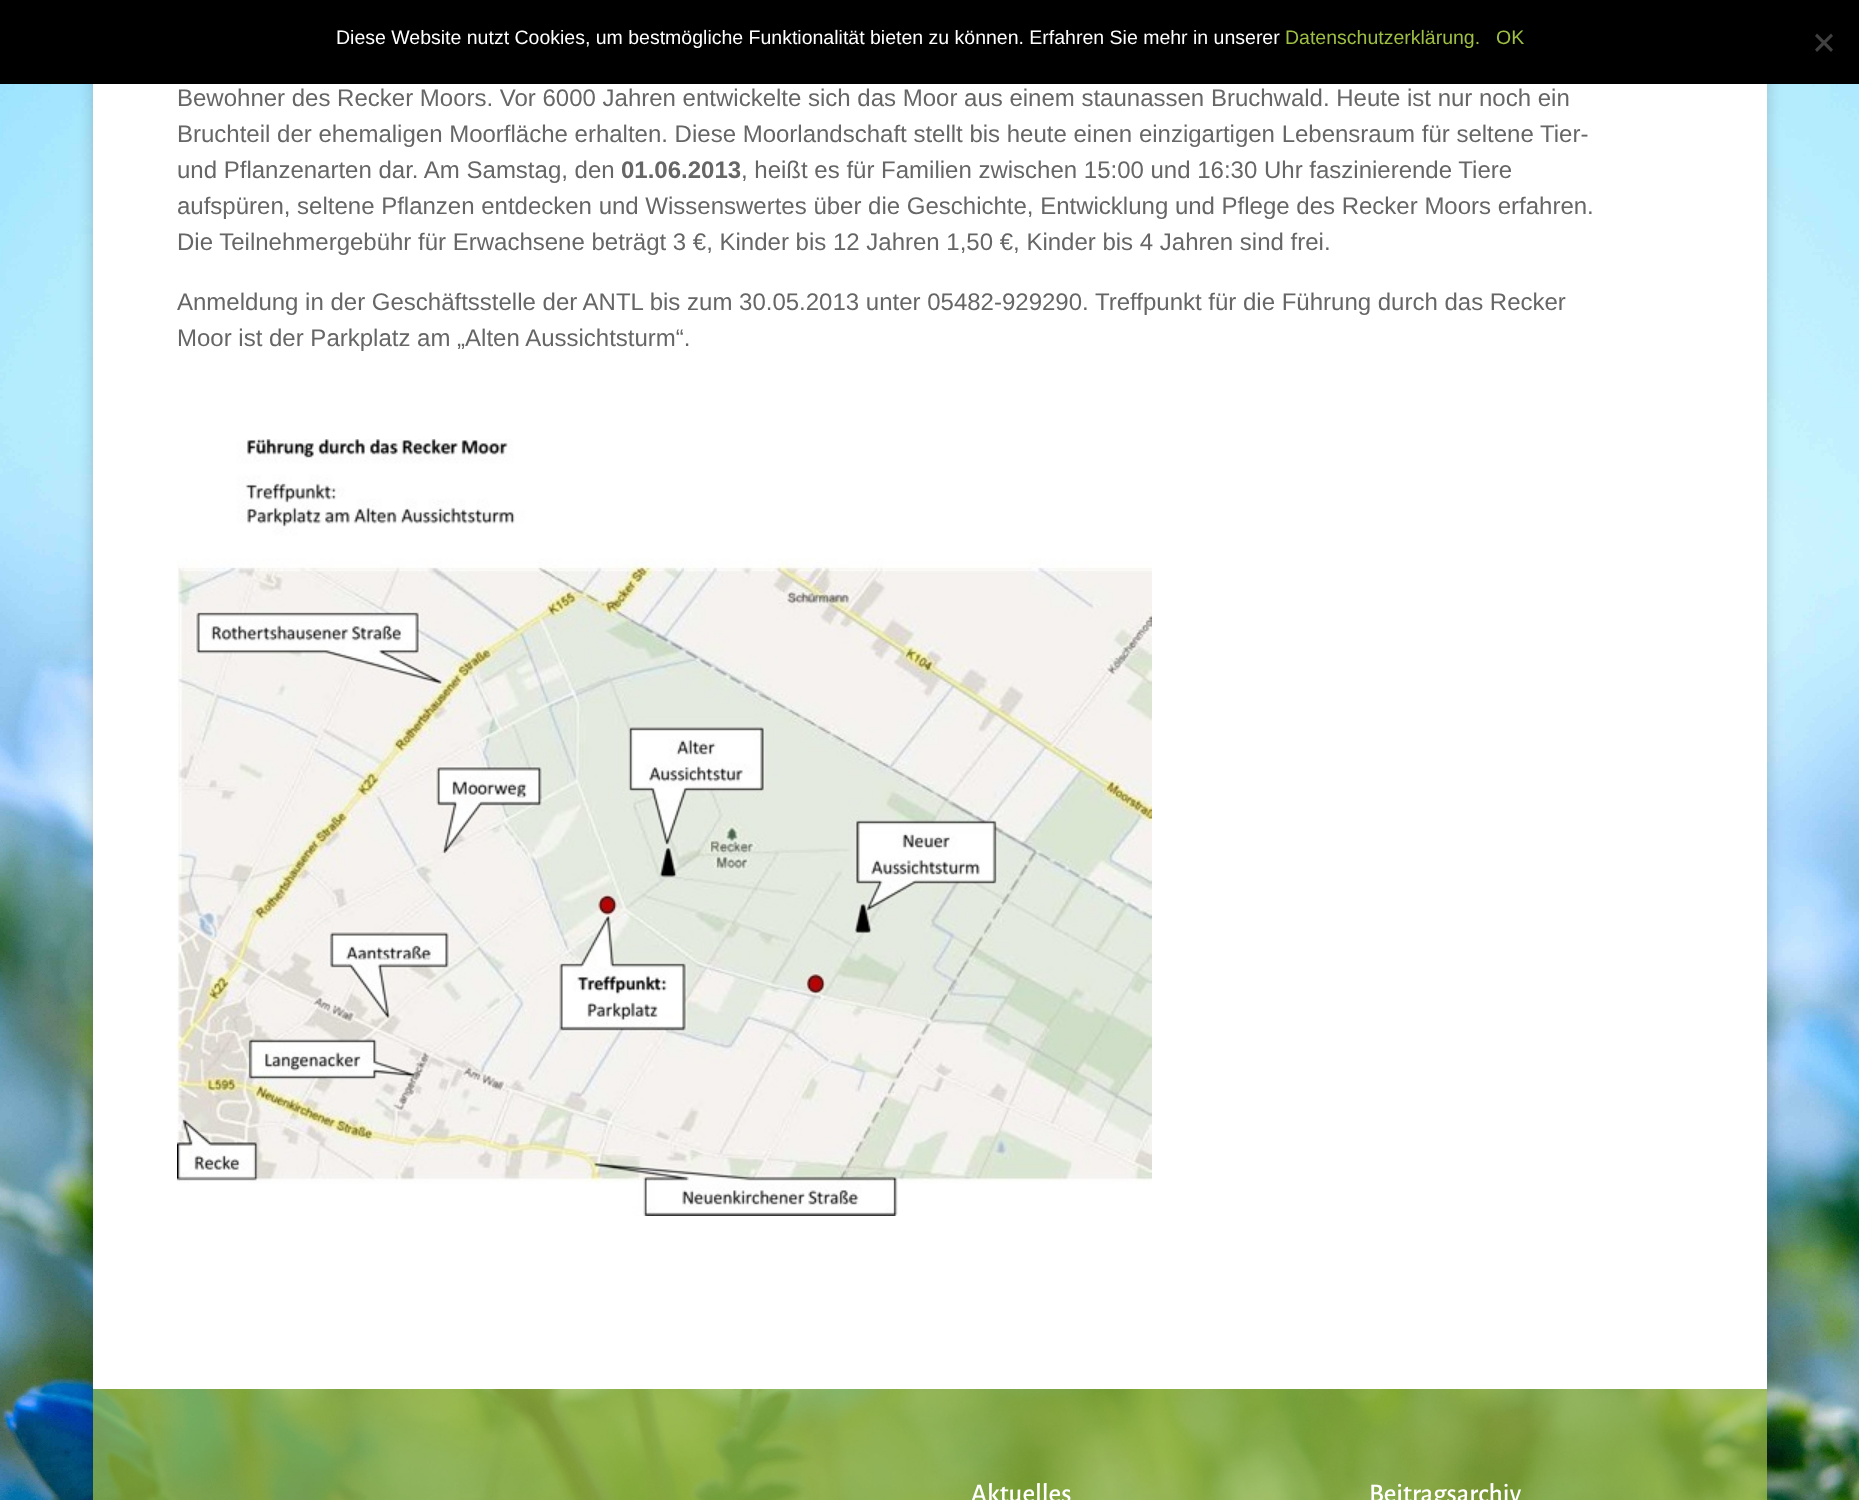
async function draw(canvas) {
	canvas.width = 1859;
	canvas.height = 1500;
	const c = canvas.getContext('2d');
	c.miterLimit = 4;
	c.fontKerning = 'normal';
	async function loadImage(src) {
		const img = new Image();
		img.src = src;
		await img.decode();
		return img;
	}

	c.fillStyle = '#fff';
	c.fillRect(0, 0, 1859, 1500);
	c.drawImage(await loadImage('img1.png'), 0, 84, 1859, 1416);
	c.save();
	c.beginPath();
	c.moveTo(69, 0);
	c.lineTo(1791, 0);
	c.lineTo(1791, 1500);
	c.lineTo(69, 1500);
	c.closePath();
	c.moveTo(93, -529);
	c.lineTo(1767, -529);
	c.lineTo(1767, 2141);
	c.lineTo(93, 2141);
	c.closePath();
	c.clip('evenodd');
	c.fillStyle = '#00000033';
	c.filter = 'blur(7.5px)';
	c.beginPath();
	c.rect(93, -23, 1674, 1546);
	c.fill();
	c.filter = 'none';
	c.restore();
	c.fillStyle = '#000';
	c.fillRect(0, 0, 1859, 84);
	c.font = '19.5px Liberation Sans';
	c.fillStyle = '#fff';
	c.fillText('Diese Website nutzt Cookies, um bestmögliche Funktionalität bieten zu können. Erfahren Sie mehr in unserer', 336, 44);
	c.fillStyle = '#9ebf43';
	c.fillText('Datenschutzerklärung.', 1285, 44);
	c.fillText('OK', 1496, 44);
	c.fillStyle = '#404040';
	c.beginPath();
	c.moveTo(1831, 33.5);
	c.lineTo(1833, 36);
	c.lineTo(1817, 52);
	c.lineTo(1815, 49.5);
	c.closePath();
	c.fill();
	c.beginPath();
	c.moveTo(1815, 36);
	c.lineTo(1817, 33.5);
	c.lineTo(1833, 49.5);
	c.lineTo(1831, 52);
	c.closePath();
	c.fill();
	c.fillStyle = '#fff';
	c.fillRect(93, 84, 1674, 1305);
	c.font = '24px Liberation Sans';
	c.fillStyle = '#666';
	for (const [text, x, y] of [
		['Bewohner des Recker Moors. Vor 6000 Jahren entwickelte sich das Moor aus einem staunassen Bruchwald. Heute ist nur noch ein', 177, 106],
		['Bruchteil der ehemaligen Moorfläche erhalten. Diese Moorlandschaft stellt bis heute einen einzigartigen Lebensraum für seltene Tier-', 177, 142],
		['und Pflanzenarten dar. Am Samstag, den', 177, 178],
	]) {
		c.fillText(text, x, y);
	}
	c.font = 'bold 24px Liberation Sans';
	c.fillText('01.06.2013', 621, 178);
	c.font = '24px Liberation Sans';
	for (const [text, x, y] of [
		[', heißt es für Familien zwischen 15:00 und 16:30 Uhr faszinierende Tiere', 741, 178],
		['aufspüren, seltene Pflanzen entdecken und Wissenswertes über die Geschichte, Entwicklung und Pflege des Recker Moors erfahren.', 177, 214],
		['Die Teilnehmergebühr für Erwachsene beträgt 3 €, Kinder bis 12 Jahren 1,50 €, Kinder bis 4 Jahren sind frei.', 177, 250],
		['Anmeldung in der Geschäftsstelle der ANTL bis zum 30.05.2013 unter 05482-929290. Treffpunkt für die Führung durch das Recker', 177, 310],
		['Moor ist der Parkplatz am „Alten Aussichtsturm“.', 177, 346],
	]) {
		c.fillText(text, x, y);
	}
	c.drawImage(await loadImage('img2.png'), 177, 439, 975, 777);
	c.fillStyle = '#9ebf43ba';
	c.fillRect(93, 1389, 1674, 111);
	c.font = '500 27px Alegreya Sans';
	c.fillStyle = '#fff';
	c.fillText('Aktuelles', 971, 1502);
	c.fillText('Beitragsarchiv', 1369, 1502);
}

draw(document.querySelector('canvas'));
